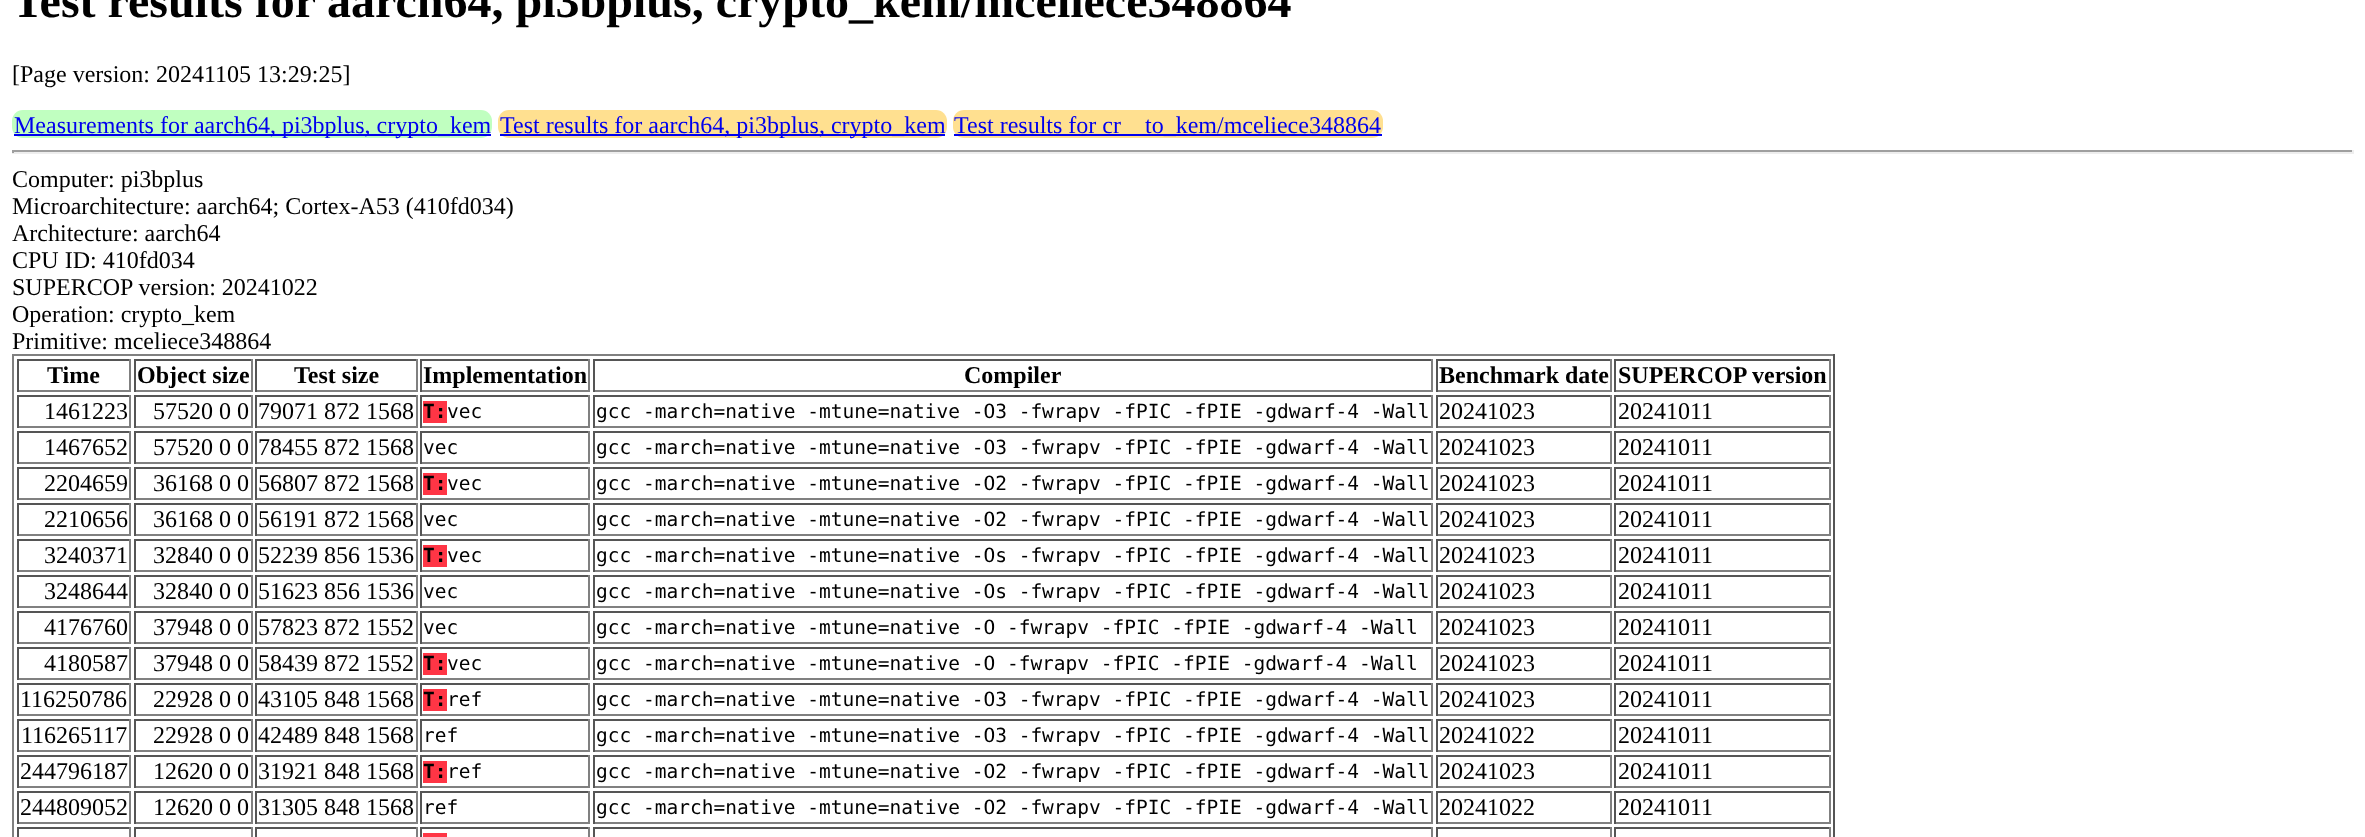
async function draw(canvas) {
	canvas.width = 2365;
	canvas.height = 837;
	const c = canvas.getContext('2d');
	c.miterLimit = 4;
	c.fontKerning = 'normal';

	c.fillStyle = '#fff';
	c.fillRect(0, 0, 2365, 837);
	c.font = 'bold 48px Liberation Serif';
	c.fillStyle = '#000';
	c.fillText('Test results for aarch64, pi3bplus, crypto_kem/mceliece348864', 12, 17);
	c.font = '24px Liberation Serif';
	c.fillText('[Page version: 20241105 13:29:25]', 12, 82);
	c.fillStyle = '#c0ffc0';
	c.beginPath();
	c.roundRect(12, 110, 480, 28, 11);
	c.fill();
	c.fillStyle = '#00e';
	c.fillRect(14, 134, 477, 2);
	c.fillText('Measurements for aarch64, pi3bplus, crypto_kem', 14, 133);
	c.fillStyle = '#ffe090';
	c.beginPath();
	c.roundRect(498, 110, 449, 28, 11);
	c.fill();
	c.fillStyle = '#00e';
	c.fillRect(500, 134, 445, 2);
	c.fillText('Test results for aarch64, pi3bplus, crypto_kem', 500, 133);
	c.fillStyle = '#ffe090';
	c.beginPath();
	c.roundRect(953, 110, 430, 28, 11);
	c.fill();
	c.fillStyle = '#00e';
	c.fillText('Test results for cr', 954, 133);
	c.fillRect(954, 134, 428, 2);
	c.fillText('to_kem/mceliece348864', 1145, 133);
	for (const [x, y, w, h, color] of [
		[12, 150, 2342, 2, '#9f9f9f'],
		[2352, 150, 2, 3, '#eee'],
		[12, 152, 2342, 2, '#eee'],
		[12, 150, 2, 3, '#9f9f9f'],
	]) {
		c.fillStyle = color;
		c.fillRect(x, y, w, h);
	}
	c.fillStyle = '#000';
	for (const [text, x, y] of [
		['Computer: pi3bplus', 12, 187],
		['Microarchitecture: aarch64; Cortex-A53 (410fd034)', 12, 214],
		['Architecture: aarch64', 12, 241],
		['CPU ID: 410fd034', 12, 268],
		['SUPERCOP version: 20241022', 12, 295],
		['Operation: crypto_kem', 12, 322],
		['Primitive: mceliece348864', 12, 349],
	]) {
		c.fillText(text, x, y);
	}
	for (const [x, y, w, h, color] of [
		[12, 354, 1823, 2, '#808080'],
		[1833, 354, 2, 483, '#555'],
		[12, 354, 2, 483, '#808080'],
		[17, 359, 114, 2, '#555'],
		[129, 359, 2, 33, '#808080'],
		[17, 390, 114, 2, '#808080'],
		[17, 359, 2, 33, '#555'],
	]) {
		c.fillStyle = color;
		c.fillRect(x, y, w, h);
	}
	c.font = 'bold 24px Liberation Serif';
	c.fillStyle = '#000';
	c.fillText('Time', 47, 383);
	for (const [x, y, w, h, color] of [
		[134, 359, 118, 2, '#555'],
		[251, 359, 2, 33, '#808080'],
		[134, 390, 118, 2, '#808080'],
		[134, 359, 2, 33, '#555'],
	]) {
		c.fillStyle = color;
		c.fillRect(x, y, w, h);
	}
	c.fillStyle = '#000';
	c.fillText('Object size', 137, 383);
	for (const [x, y, w, h, color] of [
		[255, 359, 162, 2, '#555'],
		[416, 359, 2, 33, '#808080'],
		[255, 390, 162, 2, '#808080'],
		[255, 359, 2, 33, '#555'],
	]) {
		c.fillStyle = color;
		c.fillRect(x, y, w, h);
	}
	c.fillStyle = '#000';
	c.fillText('Test size', 294, 383);
	for (const [x, y, w, h, color] of [
		[420, 359, 170, 2, '#555'],
		[588, 359, 2, 33, '#808080'],
		[420, 390, 170, 2, '#808080'],
		[420, 359, 2, 33, '#555'],
	]) {
		c.fillStyle = color;
		c.fillRect(x, y, w, h);
	}
	c.fillStyle = '#000';
	c.fillText('Implementation', 423, 383);
	for (const [x, y, w, h, color] of [
		[593, 359, 840, 2, '#555'],
		[1431, 359, 2, 33, '#808080'],
		[593, 390, 840, 2, '#808080'],
		[593, 359, 2, 33, '#555'],
	]) {
		c.fillStyle = color;
		c.fillRect(x, y, w, h);
	}
	c.fillStyle = '#000';
	c.fillText('Compiler', 964, 383);
	for (const [x, y, w, h, color] of [
		[1436, 359, 175, 2, '#555'],
		[1610, 359, 2, 33, '#808080'],
		[1436, 390, 175, 2, '#808080'],
		[1436, 359, 2, 33, '#555'],
	]) {
		c.fillStyle = color;
		c.fillRect(x, y, w, h);
	}
	c.fillStyle = '#000';
	c.fillText('Benchmark date', 1439, 383);
	for (const [x, y, w, h, color] of [
		[1614, 359, 216, 2, '#555'],
		[1829, 359, 2, 33, '#808080'],
		[1614, 390, 216, 2, '#808080'],
		[1614, 359, 2, 33, '#555'],
	]) {
		c.fillStyle = color;
		c.fillRect(x, y, w, h);
	}
	c.fillStyle = '#000';
	c.fillText('SUPERCOP version', 1618, 383);
	for (const [x, y, w, h, color] of [
		[17, 395, 114, 2, '#555'],
		[129, 395, 2, 33, '#808080'],
		[17, 426, 114, 2, '#808080'],
		[17, 395, 2, 33, '#555'],
	]) {
		c.fillStyle = color;
		c.fillRect(x, y, w, h);
	}
	c.font = '24px Liberation Serif';
	c.fillStyle = '#000';
	c.fillText('1461223', 44, 419);
	for (const [x, y, w, h, color] of [
		[134, 395, 118, 2, '#555'],
		[251, 395, 2, 33, '#808080'],
		[134, 426, 118, 2, '#808080'],
		[134, 395, 2, 33, '#555'],
	]) {
		c.fillStyle = color;
		c.fillRect(x, y, w, h);
	}
	c.fillStyle = '#000';
	c.fillText('57520 0 0', 153, 419);
	for (const [x, y, w, h, color] of [
		[255, 395, 162, 2, '#555'],
		[416, 395, 2, 33, '#808080'],
		[255, 426, 162, 2, '#808080'],
		[255, 395, 2, 33, '#555'],
	]) {
		c.fillStyle = color;
		c.fillRect(x, y, w, h);
	}
	c.fillStyle = '#000';
	c.fillText('79071 872 1568', 258, 419);
	for (const [x, y, w, h, color] of [
		[420, 395, 170, 2, '#555'],
		[588, 395, 2, 33, '#808080'],
		[420, 426, 170, 2, '#808080'],
		[420, 395, 2, 33, '#555'],
		[423, 401, 24, 22, '#ff3545'],
	]) {
		c.fillStyle = color;
		c.fillRect(x, y, w, h);
	}
	c.font = 'bold 19.5px DejaVu Sans Mono';
	c.fillStyle = '#000';
	c.fillText('T:', 423, 418);
	c.font = '19.5px DejaVu Sans Mono';
	c.fillText('vec', 447, 418);
	for (const [x, y, w, h, color] of [
		[593, 395, 840, 2, '#555'],
		[1431, 395, 2, 33, '#808080'],
		[593, 426, 840, 2, '#808080'],
		[593, 395, 2, 33, '#555'],
	]) {
		c.fillStyle = color;
		c.fillRect(x, y, w, h);
	}
	c.fillStyle = '#000';
	c.fillText('gcc -march=native -mtune=native -O3 -fwrapv -fPIC -fPIE -gdwarf-4 -Wall', 596, 418);
	for (const [x, y, w, h, color] of [
		[1436, 395, 175, 2, '#555'],
		[1610, 395, 2, 33, '#808080'],
		[1436, 426, 175, 2, '#808080'],
		[1436, 395, 2, 33, '#555'],
	]) {
		c.fillStyle = color;
		c.fillRect(x, y, w, h);
	}
	c.font = '24px Liberation Serif';
	c.fillStyle = '#000';
	c.fillText('20241023', 1439, 419);
	for (const [x, y, w, h, color] of [
		[1614, 395, 216, 2, '#555'],
		[1829, 395, 2, 33, '#808080'],
		[1614, 426, 216, 2, '#808080'],
		[1614, 395, 2, 33, '#555'],
	]) {
		c.fillStyle = color;
		c.fillRect(x, y, w, h);
	}
	c.fillStyle = '#000';
	c.fillText('20241011', 1618, 419);
	for (const [x, y, w, h, color] of [
		[17, 431, 114, 2, '#555'],
		[129, 431, 2, 33, '#808080'],
		[17, 462, 114, 2, '#808080'],
		[17, 431, 2, 33, '#555'],
	]) {
		c.fillStyle = color;
		c.fillRect(x, y, w, h);
	}
	c.fillStyle = '#000';
	c.fillText('1467652', 44, 455);
	for (const [x, y, w, h, color] of [
		[134, 431, 118, 2, '#555'],
		[251, 431, 2, 33, '#808080'],
		[134, 462, 118, 2, '#808080'],
		[134, 431, 2, 33, '#555'],
	]) {
		c.fillStyle = color;
		c.fillRect(x, y, w, h);
	}
	c.fillStyle = '#000';
	c.fillText('57520 0 0', 153, 455);
	for (const [x, y, w, h, color] of [
		[255, 431, 162, 2, '#555'],
		[416, 431, 2, 33, '#808080'],
		[255, 462, 162, 2, '#808080'],
		[255, 431, 2, 33, '#555'],
	]) {
		c.fillStyle = color;
		c.fillRect(x, y, w, h);
	}
	c.fillStyle = '#000';
	c.fillText('78455 872 1568', 258, 455);
	for (const [x, y, w, h, color] of [
		[420, 431, 170, 2, '#555'],
		[588, 431, 2, 33, '#808080'],
		[420, 462, 170, 2, '#808080'],
		[420, 431, 2, 33, '#555'],
	]) {
		c.fillStyle = color;
		c.fillRect(x, y, w, h);
	}
	c.font = '19.5px DejaVu Sans Mono';
	c.fillStyle = '#000';
	c.fillText('vec', 423, 454);
	for (const [x, y, w, h, color] of [
		[593, 431, 840, 2, '#555'],
		[1431, 431, 2, 33, '#808080'],
		[593, 462, 840, 2, '#808080'],
		[593, 431, 2, 33, '#555'],
	]) {
		c.fillStyle = color;
		c.fillRect(x, y, w, h);
	}
	c.fillStyle = '#000';
	c.fillText('gcc -march=native -mtune=native -O3 -fwrapv -fPIC -fPIE -gdwarf-4 -Wall', 596, 454);
	for (const [x, y, w, h, color] of [
		[1436, 431, 175, 2, '#555'],
		[1610, 431, 2, 33, '#808080'],
		[1436, 462, 175, 2, '#808080'],
		[1436, 431, 2, 33, '#555'],
	]) {
		c.fillStyle = color;
		c.fillRect(x, y, w, h);
	}
	c.font = '24px Liberation Serif';
	c.fillStyle = '#000';
	c.fillText('20241023', 1439, 455);
	for (const [x, y, w, h, color] of [
		[1614, 431, 216, 2, '#555'],
		[1829, 431, 2, 33, '#808080'],
		[1614, 462, 216, 2, '#808080'],
		[1614, 431, 2, 33, '#555'],
	]) {
		c.fillStyle = color;
		c.fillRect(x, y, w, h);
	}
	c.fillStyle = '#000';
	c.fillText('20241011', 1618, 455);
	for (const [x, y, w, h, color] of [
		[17, 467, 114, 2, '#555'],
		[129, 467, 2, 33, '#808080'],
		[17, 498, 114, 2, '#808080'],
		[17, 467, 2, 33, '#555'],
	]) {
		c.fillStyle = color;
		c.fillRect(x, y, w, h);
	}
	c.fillStyle = '#000';
	c.fillText('2204659', 44, 491);
	for (const [x, y, w, h, color] of [
		[134, 467, 118, 2, '#555'],
		[251, 467, 2, 33, '#808080'],
		[134, 498, 118, 2, '#808080'],
		[134, 467, 2, 33, '#555'],
	]) {
		c.fillStyle = color;
		c.fillRect(x, y, w, h);
	}
	c.fillStyle = '#000';
	c.fillText('36168 0 0', 153, 491);
	for (const [x, y, w, h, color] of [
		[255, 467, 162, 2, '#555'],
		[416, 467, 2, 33, '#808080'],
		[255, 498, 162, 2, '#808080'],
		[255, 467, 2, 33, '#555'],
	]) {
		c.fillStyle = color;
		c.fillRect(x, y, w, h);
	}
	c.fillStyle = '#000';
	c.fillText('56807 872 1568', 258, 491);
	for (const [x, y, w, h, color] of [
		[420, 467, 170, 2, '#555'],
		[588, 467, 2, 33, '#808080'],
		[420, 498, 170, 2, '#808080'],
		[420, 467, 2, 33, '#555'],
		[423, 473, 24, 22, '#ff3545'],
	]) {
		c.fillStyle = color;
		c.fillRect(x, y, w, h);
	}
	c.font = 'bold 19.5px DejaVu Sans Mono';
	c.fillStyle = '#000';
	c.fillText('T:', 423, 490);
	c.font = '19.5px DejaVu Sans Mono';
	c.fillText('vec', 447, 490);
	for (const [x, y, w, h, color] of [
		[593, 467, 840, 2, '#555'],
		[1431, 467, 2, 33, '#808080'],
		[593, 498, 840, 2, '#808080'],
		[593, 467, 2, 33, '#555'],
	]) {
		c.fillStyle = color;
		c.fillRect(x, y, w, h);
	}
	c.fillStyle = '#000';
	c.fillText('gcc -march=native -mtune=native -O2 -fwrapv -fPIC -fPIE -gdwarf-4 -Wall', 596, 490);
	for (const [x, y, w, h, color] of [
		[1436, 467, 175, 2, '#555'],
		[1610, 467, 2, 33, '#808080'],
		[1436, 498, 175, 2, '#808080'],
		[1436, 467, 2, 33, '#555'],
	]) {
		c.fillStyle = color;
		c.fillRect(x, y, w, h);
	}
	c.font = '24px Liberation Serif';
	c.fillStyle = '#000';
	c.fillText('20241023', 1439, 491);
	for (const [x, y, w, h, color] of [
		[1614, 467, 216, 2, '#555'],
		[1829, 467, 2, 33, '#808080'],
		[1614, 498, 216, 2, '#808080'],
		[1614, 467, 2, 33, '#555'],
	]) {
		c.fillStyle = color;
		c.fillRect(x, y, w, h);
	}
	c.fillStyle = '#000';
	c.fillText('20241011', 1618, 491);
	for (const [x, y, w, h, color] of [
		[17, 503, 114, 2, '#555'],
		[129, 503, 2, 33, '#808080'],
		[17, 534, 114, 2, '#808080'],
		[17, 503, 2, 33, '#555'],
	]) {
		c.fillStyle = color;
		c.fillRect(x, y, w, h);
	}
	c.fillStyle = '#000';
	c.fillText('2210656', 44, 527);
	for (const [x, y, w, h, color] of [
		[134, 503, 118, 2, '#555'],
		[251, 503, 2, 33, '#808080'],
		[134, 534, 118, 2, '#808080'],
		[134, 503, 2, 33, '#555'],
	]) {
		c.fillStyle = color;
		c.fillRect(x, y, w, h);
	}
	c.fillStyle = '#000';
	c.fillText('36168 0 0', 153, 527);
	for (const [x, y, w, h, color] of [
		[255, 503, 162, 2, '#555'],
		[416, 503, 2, 33, '#808080'],
		[255, 534, 162, 2, '#808080'],
		[255, 503, 2, 33, '#555'],
	]) {
		c.fillStyle = color;
		c.fillRect(x, y, w, h);
	}
	c.fillStyle = '#000';
	c.fillText('56191 872 1568', 258, 527);
	for (const [x, y, w, h, color] of [
		[420, 503, 170, 2, '#555'],
		[588, 503, 2, 33, '#808080'],
		[420, 534, 170, 2, '#808080'],
		[420, 503, 2, 33, '#555'],
	]) {
		c.fillStyle = color;
		c.fillRect(x, y, w, h);
	}
	c.font = '19.5px DejaVu Sans Mono';
	c.fillStyle = '#000';
	c.fillText('vec', 423, 526);
	for (const [x, y, w, h, color] of [
		[593, 503, 840, 2, '#555'],
		[1431, 503, 2, 33, '#808080'],
		[593, 534, 840, 2, '#808080'],
		[593, 503, 2, 33, '#555'],
	]) {
		c.fillStyle = color;
		c.fillRect(x, y, w, h);
	}
	c.fillStyle = '#000';
	c.fillText('gcc -march=native -mtune=native -O2 -fwrapv -fPIC -fPIE -gdwarf-4 -Wall', 596, 526);
	for (const [x, y, w, h, color] of [
		[1436, 503, 175, 2, '#555'],
		[1610, 503, 2, 33, '#808080'],
		[1436, 534, 175, 2, '#808080'],
		[1436, 503, 2, 33, '#555'],
	]) {
		c.fillStyle = color;
		c.fillRect(x, y, w, h);
	}
	c.font = '24px Liberation Serif';
	c.fillStyle = '#000';
	c.fillText('20241023', 1439, 527);
	for (const [x, y, w, h, color] of [
		[1614, 503, 216, 2, '#555'],
		[1829, 503, 2, 33, '#808080'],
		[1614, 534, 216, 2, '#808080'],
		[1614, 503, 2, 33, '#555'],
	]) {
		c.fillStyle = color;
		c.fillRect(x, y, w, h);
	}
	c.fillStyle = '#000';
	c.fillText('20241011', 1618, 527);
	for (const [x, y, w, h, color] of [
		[17, 539, 114, 2, '#555'],
		[129, 539, 2, 33, '#808080'],
		[17, 570, 114, 2, '#808080'],
		[17, 539, 2, 33, '#555'],
	]) {
		c.fillStyle = color;
		c.fillRect(x, y, w, h);
	}
	c.fillStyle = '#000';
	c.fillText('3240371', 44, 563);
	for (const [x, y, w, h, color] of [
		[134, 539, 118, 2, '#555'],
		[251, 539, 2, 33, '#808080'],
		[134, 570, 118, 2, '#808080'],
		[134, 539, 2, 33, '#555'],
	]) {
		c.fillStyle = color;
		c.fillRect(x, y, w, h);
	}
	c.fillStyle = '#000';
	c.fillText('32840 0 0', 153, 563);
	for (const [x, y, w, h, color] of [
		[255, 539, 162, 2, '#555'],
		[416, 539, 2, 33, '#808080'],
		[255, 570, 162, 2, '#808080'],
		[255, 539, 2, 33, '#555'],
	]) {
		c.fillStyle = color;
		c.fillRect(x, y, w, h);
	}
	c.fillStyle = '#000';
	c.fillText('52239 856 1536', 258, 563);
	for (const [x, y, w, h, color] of [
		[420, 539, 170, 2, '#555'],
		[588, 539, 2, 33, '#808080'],
		[420, 570, 170, 2, '#808080'],
		[420, 539, 2, 33, '#555'],
		[423, 545, 24, 22, '#ff3545'],
	]) {
		c.fillStyle = color;
		c.fillRect(x, y, w, h);
	}
	c.font = 'bold 19.5px DejaVu Sans Mono';
	c.fillStyle = '#000';
	c.fillText('T:', 423, 562);
	c.font = '19.5px DejaVu Sans Mono';
	c.fillText('vec', 447, 562);
	for (const [x, y, w, h, color] of [
		[593, 539, 840, 2, '#555'],
		[1431, 539, 2, 33, '#808080'],
		[593, 570, 840, 2, '#808080'],
		[593, 539, 2, 33, '#555'],
	]) {
		c.fillStyle = color;
		c.fillRect(x, y, w, h);
	}
	c.fillStyle = '#000';
	c.fillText('gcc -march=native -mtune=native -Os -fwrapv -fPIC -fPIE -gdwarf-4 -Wall', 596, 562);
	for (const [x, y, w, h, color] of [
		[1436, 539, 175, 2, '#555'],
		[1610, 539, 2, 33, '#808080'],
		[1436, 570, 175, 2, '#808080'],
		[1436, 539, 2, 33, '#555'],
	]) {
		c.fillStyle = color;
		c.fillRect(x, y, w, h);
	}
	c.font = '24px Liberation Serif';
	c.fillStyle = '#000';
	c.fillText('20241023', 1439, 563);
	for (const [x, y, w, h, color] of [
		[1614, 539, 216, 2, '#555'],
		[1829, 539, 2, 33, '#808080'],
		[1614, 570, 216, 2, '#808080'],
		[1614, 539, 2, 33, '#555'],
	]) {
		c.fillStyle = color;
		c.fillRect(x, y, w, h);
	}
	c.fillStyle = '#000';
	c.fillText('20241011', 1618, 563);
	for (const [x, y, w, h, color] of [
		[17, 575, 114, 2, '#555'],
		[129, 575, 2, 33, '#808080'],
		[17, 606, 114, 2, '#808080'],
		[17, 575, 2, 33, '#555'],
	]) {
		c.fillStyle = color;
		c.fillRect(x, y, w, h);
	}
	c.fillStyle = '#000';
	c.fillText('3248644', 44, 599);
	for (const [x, y, w, h, color] of [
		[134, 575, 118, 2, '#555'],
		[251, 575, 2, 33, '#808080'],
		[134, 606, 118, 2, '#808080'],
		[134, 575, 2, 33, '#555'],
	]) {
		c.fillStyle = color;
		c.fillRect(x, y, w, h);
	}
	c.fillStyle = '#000';
	c.fillText('32840 0 0', 153, 599);
	for (const [x, y, w, h, color] of [
		[255, 575, 162, 2, '#555'],
		[416, 575, 2, 33, '#808080'],
		[255, 606, 162, 2, '#808080'],
		[255, 575, 2, 33, '#555'],
	]) {
		c.fillStyle = color;
		c.fillRect(x, y, w, h);
	}
	c.fillStyle = '#000';
	c.fillText('51623 856 1536', 258, 599);
	for (const [x, y, w, h, color] of [
		[420, 575, 170, 2, '#555'],
		[588, 575, 2, 33, '#808080'],
		[420, 606, 170, 2, '#808080'],
		[420, 575, 2, 33, '#555'],
	]) {
		c.fillStyle = color;
		c.fillRect(x, y, w, h);
	}
	c.font = '19.5px DejaVu Sans Mono';
	c.fillStyle = '#000';
	c.fillText('vec', 423, 598);
	for (const [x, y, w, h, color] of [
		[593, 575, 840, 2, '#555'],
		[1431, 575, 2, 33, '#808080'],
		[593, 606, 840, 2, '#808080'],
		[593, 575, 2, 33, '#555'],
	]) {
		c.fillStyle = color;
		c.fillRect(x, y, w, h);
	}
	c.fillStyle = '#000';
	c.fillText('gcc -march=native -mtune=native -Os -fwrapv -fPIC -fPIE -gdwarf-4 -Wall', 596, 598);
	for (const [x, y, w, h, color] of [
		[1436, 575, 175, 2, '#555'],
		[1610, 575, 2, 33, '#808080'],
		[1436, 606, 175, 2, '#808080'],
		[1436, 575, 2, 33, '#555'],
	]) {
		c.fillStyle = color;
		c.fillRect(x, y, w, h);
	}
	c.font = '24px Liberation Serif';
	c.fillStyle = '#000';
	c.fillText('20241023', 1439, 599);
	for (const [x, y, w, h, color] of [
		[1614, 575, 216, 2, '#555'],
		[1829, 575, 2, 33, '#808080'],
		[1614, 606, 216, 2, '#808080'],
		[1614, 575, 2, 33, '#555'],
	]) {
		c.fillStyle = color;
		c.fillRect(x, y, w, h);
	}
	c.fillStyle = '#000';
	c.fillText('20241011', 1618, 599);
	for (const [x, y, w, h, color] of [
		[17, 611, 114, 2, '#555'],
		[129, 611, 2, 33, '#808080'],
		[17, 642, 114, 2, '#808080'],
		[17, 611, 2, 33, '#555'],
	]) {
		c.fillStyle = color;
		c.fillRect(x, y, w, h);
	}
	c.fillStyle = '#000';
	c.fillText('4176760', 44, 635);
	for (const [x, y, w, h, color] of [
		[134, 611, 118, 2, '#555'],
		[251, 611, 2, 33, '#808080'],
		[134, 642, 118, 2, '#808080'],
		[134, 611, 2, 33, '#555'],
	]) {
		c.fillStyle = color;
		c.fillRect(x, y, w, h);
	}
	c.fillStyle = '#000';
	c.fillText('37948 0 0', 153, 635);
	for (const [x, y, w, h, color] of [
		[255, 611, 162, 2, '#555'],
		[416, 611, 2, 33, '#808080'],
		[255, 642, 162, 2, '#808080'],
		[255, 611, 2, 33, '#555'],
	]) {
		c.fillStyle = color;
		c.fillRect(x, y, w, h);
	}
	c.fillStyle = '#000';
	c.fillText('57823 872 1552', 258, 635);
	for (const [x, y, w, h, color] of [
		[420, 611, 170, 2, '#555'],
		[588, 611, 2, 33, '#808080'],
		[420, 642, 170, 2, '#808080'],
		[420, 611, 2, 33, '#555'],
	]) {
		c.fillStyle = color;
		c.fillRect(x, y, w, h);
	}
	c.font = '19.5px DejaVu Sans Mono';
	c.fillStyle = '#000';
	c.fillText('vec', 423, 634);
	for (const [x, y, w, h, color] of [
		[593, 611, 840, 2, '#555'],
		[1431, 611, 2, 33, '#808080'],
		[593, 642, 840, 2, '#808080'],
		[593, 611, 2, 33, '#555'],
	]) {
		c.fillStyle = color;
		c.fillRect(x, y, w, h);
	}
	c.fillStyle = '#000';
	c.fillText('gcc -march=native -mtune=native -O -fwrapv -fPIC -fPIE -gdwarf-4 -Wall', 596, 634);
	for (const [x, y, w, h, color] of [
		[1436, 611, 175, 2, '#555'],
		[1610, 611, 2, 33, '#808080'],
		[1436, 642, 175, 2, '#808080'],
		[1436, 611, 2, 33, '#555'],
	]) {
		c.fillStyle = color;
		c.fillRect(x, y, w, h);
	}
	c.font = '24px Liberation Serif';
	c.fillStyle = '#000';
	c.fillText('20241023', 1439, 635);
	for (const [x, y, w, h, color] of [
		[1614, 611, 216, 2, '#555'],
		[1829, 611, 2, 33, '#808080'],
		[1614, 642, 216, 2, '#808080'],
		[1614, 611, 2, 33, '#555'],
	]) {
		c.fillStyle = color;
		c.fillRect(x, y, w, h);
	}
	c.fillStyle = '#000';
	c.fillText('20241011', 1618, 635);
	for (const [x, y, w, h, color] of [
		[17, 647, 114, 2, '#555'],
		[129, 647, 2, 33, '#808080'],
		[17, 678, 114, 2, '#808080'],
		[17, 647, 2, 33, '#555'],
	]) {
		c.fillStyle = color;
		c.fillRect(x, y, w, h);
	}
	c.fillStyle = '#000';
	c.fillText('4180587', 44, 671);
	for (const [x, y, w, h, color] of [
		[134, 647, 118, 2, '#555'],
		[251, 647, 2, 33, '#808080'],
		[134, 678, 118, 2, '#808080'],
		[134, 647, 2, 33, '#555'],
	]) {
		c.fillStyle = color;
		c.fillRect(x, y, w, h);
	}
	c.fillStyle = '#000';
	c.fillText('37948 0 0', 153, 671);
	for (const [x, y, w, h, color] of [
		[255, 647, 162, 2, '#555'],
		[416, 647, 2, 33, '#808080'],
		[255, 678, 162, 2, '#808080'],
		[255, 647, 2, 33, '#555'],
	]) {
		c.fillStyle = color;
		c.fillRect(x, y, w, h);
	}
	c.fillStyle = '#000';
	c.fillText('58439 872 1552', 258, 671);
	for (const [x, y, w, h, color] of [
		[420, 647, 170, 2, '#555'],
		[588, 647, 2, 33, '#808080'],
		[420, 678, 170, 2, '#808080'],
		[420, 647, 2, 33, '#555'],
		[423, 653, 24, 22, '#ff3545'],
	]) {
		c.fillStyle = color;
		c.fillRect(x, y, w, h);
	}
	c.font = 'bold 19.5px DejaVu Sans Mono';
	c.fillStyle = '#000';
	c.fillText('T:', 423, 670);
	c.font = '19.5px DejaVu Sans Mono';
	c.fillText('vec', 447, 670);
	for (const [x, y, w, h, color] of [
		[593, 647, 840, 2, '#555'],
		[1431, 647, 2, 33, '#808080'],
		[593, 678, 840, 2, '#808080'],
		[593, 647, 2, 33, '#555'],
	]) {
		c.fillStyle = color;
		c.fillRect(x, y, w, h);
	}
	c.fillStyle = '#000';
	c.fillText('gcc -march=native -mtune=native -O -fwrapv -fPIC -fPIE -gdwarf-4 -Wall', 596, 670);
	for (const [x, y, w, h, color] of [
		[1436, 647, 175, 2, '#555'],
		[1610, 647, 2, 33, '#808080'],
		[1436, 678, 175, 2, '#808080'],
		[1436, 647, 2, 33, '#555'],
	]) {
		c.fillStyle = color;
		c.fillRect(x, y, w, h);
	}
	c.font = '24px Liberation Serif';
	c.fillStyle = '#000';
	c.fillText('20241023', 1439, 671);
	for (const [x, y, w, h, color] of [
		[1614, 647, 216, 2, '#555'],
		[1829, 647, 2, 33, '#808080'],
		[1614, 678, 216, 2, '#808080'],
		[1614, 647, 2, 33, '#555'],
	]) {
		c.fillStyle = color;
		c.fillRect(x, y, w, h);
	}
	c.fillStyle = '#000';
	c.fillText('20241011', 1618, 671);
	for (const [x, y, w, h, color] of [
		[17, 683, 114, 2, '#555'],
		[129, 683, 2, 33, '#808080'],
		[17, 714, 114, 2, '#808080'],
		[17, 683, 2, 33, '#555'],
	]) {
		c.fillStyle = color;
		c.fillRect(x, y, w, h);
	}
	c.fillStyle = '#000';
	c.fillText('116250786', 20, 707);
	for (const [x, y, w, h, color] of [
		[134, 683, 118, 2, '#555'],
		[251, 683, 2, 33, '#808080'],
		[134, 714, 118, 2, '#808080'],
		[134, 683, 2, 33, '#555'],
	]) {
		c.fillStyle = color;
		c.fillRect(x, y, w, h);
	}
	c.fillStyle = '#000';
	c.fillText('22928 0 0', 153, 707);
	for (const [x, y, w, h, color] of [
		[255, 683, 162, 2, '#555'],
		[416, 683, 2, 33, '#808080'],
		[255, 714, 162, 2, '#808080'],
		[255, 683, 2, 33, '#555'],
	]) {
		c.fillStyle = color;
		c.fillRect(x, y, w, h);
	}
	c.fillStyle = '#000';
	c.fillText('43105 848 1568', 258, 707);
	for (const [x, y, w, h, color] of [
		[420, 683, 170, 2, '#555'],
		[588, 683, 2, 33, '#808080'],
		[420, 714, 170, 2, '#808080'],
		[420, 683, 2, 33, '#555'],
		[423, 689, 24, 22, '#ff3545'],
	]) {
		c.fillStyle = color;
		c.fillRect(x, y, w, h);
	}
	c.font = 'bold 19.5px DejaVu Sans Mono';
	c.fillStyle = '#000';
	c.fillText('T:', 423, 706);
	c.font = '19.5px DejaVu Sans Mono';
	c.fillText('ref', 447, 706);
	for (const [x, y, w, h, color] of [
		[593, 683, 840, 2, '#555'],
		[1431, 683, 2, 33, '#808080'],
		[593, 714, 840, 2, '#808080'],
		[593, 683, 2, 33, '#555'],
	]) {
		c.fillStyle = color;
		c.fillRect(x, y, w, h);
	}
	c.fillStyle = '#000';
	c.fillText('gcc -march=native -mtune=native -O3 -fwrapv -fPIC -fPIE -gdwarf-4 -Wall', 596, 706);
	for (const [x, y, w, h, color] of [
		[1436, 683, 175, 2, '#555'],
		[1610, 683, 2, 33, '#808080'],
		[1436, 714, 175, 2, '#808080'],
		[1436, 683, 2, 33, '#555'],
	]) {
		c.fillStyle = color;
		c.fillRect(x, y, w, h);
	}
	c.font = '24px Liberation Serif';
	c.fillStyle = '#000';
	c.fillText('20241023', 1439, 707);
	for (const [x, y, w, h, color] of [
		[1614, 683, 216, 2, '#555'],
		[1829, 683, 2, 33, '#808080'],
		[1614, 714, 216, 2, '#808080'],
		[1614, 683, 2, 33, '#555'],
	]) {
		c.fillStyle = color;
		c.fillRect(x, y, w, h);
	}
	c.fillStyle = '#000';
	c.fillText('20241011', 1618, 707);
	for (const [x, y, w, h, color] of [
		[17, 719, 114, 2, '#555'],
		[129, 719, 2, 33, '#808080'],
		[17, 750, 114, 2, '#808080'],
		[17, 719, 2, 33, '#555'],
	]) {
		c.fillStyle = color;
		c.fillRect(x, y, w, h);
	}
	c.fillStyle = '#000';
	c.fillText('116265117', 21, 743);
	for (const [x, y, w, h, color] of [
		[134, 719, 118, 2, '#555'],
		[251, 719, 2, 33, '#808080'],
		[134, 750, 118, 2, '#808080'],
		[134, 719, 2, 33, '#555'],
	]) {
		c.fillStyle = color;
		c.fillRect(x, y, w, h);
	}
	c.fillStyle = '#000';
	c.fillText('22928 0 0', 153, 743);
	for (const [x, y, w, h, color] of [
		[255, 719, 162, 2, '#555'],
		[416, 719, 2, 33, '#808080'],
		[255, 750, 162, 2, '#808080'],
		[255, 719, 2, 33, '#555'],
	]) {
		c.fillStyle = color;
		c.fillRect(x, y, w, h);
	}
	c.fillStyle = '#000';
	c.fillText('42489 848 1568', 258, 743);
	for (const [x, y, w, h, color] of [
		[420, 719, 170, 2, '#555'],
		[588, 719, 2, 33, '#808080'],
		[420, 750, 170, 2, '#808080'],
		[420, 719, 2, 33, '#555'],
	]) {
		c.fillStyle = color;
		c.fillRect(x, y, w, h);
	}
	c.font = '19.5px DejaVu Sans Mono';
	c.fillStyle = '#000';
	c.fillText('ref', 423, 742);
	for (const [x, y, w, h, color] of [
		[593, 719, 840, 2, '#555'],
		[1431, 719, 2, 33, '#808080'],
		[593, 750, 840, 2, '#808080'],
		[593, 719, 2, 33, '#555'],
	]) {
		c.fillStyle = color;
		c.fillRect(x, y, w, h);
	}
	c.fillStyle = '#000';
	c.fillText('gcc -march=native -mtune=native -O3 -fwrapv -fPIC -fPIE -gdwarf-4 -Wall', 596, 742);
	for (const [x, y, w, h, color] of [
		[1436, 719, 175, 2, '#555'],
		[1610, 719, 2, 33, '#808080'],
		[1436, 750, 175, 2, '#808080'],
		[1436, 719, 2, 33, '#555'],
	]) {
		c.fillStyle = color;
		c.fillRect(x, y, w, h);
	}
	c.font = '24px Liberation Serif';
	c.fillStyle = '#000';
	c.fillText('20241022', 1439, 743);
	for (const [x, y, w, h, color] of [
		[1614, 719, 216, 2, '#555'],
		[1829, 719, 2, 33, '#808080'],
		[1614, 750, 216, 2, '#808080'],
		[1614, 719, 2, 33, '#555'],
	]) {
		c.fillStyle = color;
		c.fillRect(x, y, w, h);
	}
	c.fillStyle = '#000';
	c.fillText('20241011', 1618, 743);
	for (const [x, y, w, h, color] of [
		[17, 755, 114, 2, '#555'],
		[129, 755, 2, 33, '#808080'],
		[17, 786, 114, 2, '#808080'],
		[17, 755, 2, 33, '#555'],
	]) {
		c.fillStyle = color;
		c.fillRect(x, y, w, h);
	}
	c.fillStyle = '#000';
	c.fillText('244796187', 20, 779);
	for (const [x, y, w, h, color] of [
		[134, 755, 118, 2, '#555'],
		[251, 755, 2, 33, '#808080'],
		[134, 786, 118, 2, '#808080'],
		[134, 755, 2, 33, '#555'],
	]) {
		c.fillStyle = color;
		c.fillRect(x, y, w, h);
	}
	c.fillStyle = '#000';
	c.fillText('12620 0 0', 153, 779);
	for (const [x, y, w, h, color] of [
		[255, 755, 162, 2, '#555'],
		[416, 755, 2, 33, '#808080'],
		[255, 786, 162, 2, '#808080'],
		[255, 755, 2, 33, '#555'],
	]) {
		c.fillStyle = color;
		c.fillRect(x, y, w, h);
	}
	c.fillStyle = '#000';
	c.fillText('31921 848 1568', 258, 779);
	for (const [x, y, w, h, color] of [
		[420, 755, 170, 2, '#555'],
		[588, 755, 2, 33, '#808080'],
		[420, 786, 170, 2, '#808080'],
		[420, 755, 2, 33, '#555'],
		[423, 761, 24, 22, '#ff3545'],
	]) {
		c.fillStyle = color;
		c.fillRect(x, y, w, h);
	}
	c.font = 'bold 19.5px DejaVu Sans Mono';
	c.fillStyle = '#000';
	c.fillText('T:', 423, 778);
	c.font = '19.5px DejaVu Sans Mono';
	c.fillText('ref', 447, 778);
	for (const [x, y, w, h, color] of [
		[593, 755, 840, 2, '#555'],
		[1431, 755, 2, 33, '#808080'],
		[593, 786, 840, 2, '#808080'],
		[593, 755, 2, 33, '#555'],
	]) {
		c.fillStyle = color;
		c.fillRect(x, y, w, h);
	}
	c.fillStyle = '#000';
	c.fillText('gcc -march=native -mtune=native -O2 -fwrapv -fPIC -fPIE -gdwarf-4 -Wall', 596, 778);
	for (const [x, y, w, h, color] of [
		[1436, 755, 175, 2, '#555'],
		[1610, 755, 2, 33, '#808080'],
		[1436, 786, 175, 2, '#808080'],
		[1436, 755, 2, 33, '#555'],
	]) {
		c.fillStyle = color;
		c.fillRect(x, y, w, h);
	}
	c.font = '24px Liberation Serif';
	c.fillStyle = '#000';
	c.fillText('20241023', 1439, 779);
	for (const [x, y, w, h, color] of [
		[1614, 755, 216, 2, '#555'],
		[1829, 755, 2, 33, '#808080'],
		[1614, 786, 216, 2, '#808080'],
		[1614, 755, 2, 33, '#555'],
	]) {
		c.fillStyle = color;
		c.fillRect(x, y, w, h);
	}
	c.fillStyle = '#000';
	c.fillText('20241011', 1618, 779);
	for (const [x, y, w, h, color] of [
		[17, 791, 114, 2, '#555'],
		[129, 791, 2, 33, '#808080'],
		[17, 822, 114, 2, '#808080'],
		[17, 791, 2, 33, '#555'],
	]) {
		c.fillStyle = color;
		c.fillRect(x, y, w, h);
	}
	c.fillStyle = '#000';
	c.fillText('244809052', 20, 815);
	for (const [x, y, w, h, color] of [
		[134, 791, 118, 2, '#555'],
		[251, 791, 2, 33, '#808080'],
		[134, 822, 118, 2, '#808080'],
		[134, 791, 2, 33, '#555'],
	]) {
		c.fillStyle = color;
		c.fillRect(x, y, w, h);
	}
	c.fillStyle = '#000';
	c.fillText('12620 0 0', 153, 815);
	for (const [x, y, w, h, color] of [
		[255, 791, 162, 2, '#555'],
		[416, 791, 2, 33, '#808080'],
		[255, 822, 162, 2, '#808080'],
		[255, 791, 2, 33, '#555'],
	]) {
		c.fillStyle = color;
		c.fillRect(x, y, w, h);
	}
	c.fillStyle = '#000';
	c.fillText('31305 848 1568', 258, 815);
	for (const [x, y, w, h, color] of [
		[420, 791, 170, 2, '#555'],
		[588, 791, 2, 33, '#808080'],
		[420, 822, 170, 2, '#808080'],
		[420, 791, 2, 33, '#555'],
	]) {
		c.fillStyle = color;
		c.fillRect(x, y, w, h);
	}
	c.font = '19.5px DejaVu Sans Mono';
	c.fillStyle = '#000';
	c.fillText('ref', 423, 814);
	for (const [x, y, w, h, color] of [
		[593, 791, 840, 2, '#555'],
		[1431, 791, 2, 33, '#808080'],
		[593, 822, 840, 2, '#808080'],
		[593, 791, 2, 33, '#555'],
	]) {
		c.fillStyle = color;
		c.fillRect(x, y, w, h);
	}
	c.fillStyle = '#000';
	c.fillText('gcc -march=native -mtune=native -O2 -fwrapv -fPIC -fPIE -gdwarf-4 -Wall', 596, 814);
	for (const [x, y, w, h, color] of [
		[1436, 791, 175, 2, '#555'],
		[1610, 791, 2, 33, '#808080'],
		[1436, 822, 175, 2, '#808080'],
		[1436, 791, 2, 33, '#555'],
	]) {
		c.fillStyle = color;
		c.fillRect(x, y, w, h);
	}
	c.font = '24px Liberation Serif';
	c.fillStyle = '#000';
	c.fillText('20241022', 1439, 815);
	for (const [x, y, w, h, color] of [
		[1614, 791, 216, 2, '#555'],
		[1829, 791, 2, 33, '#808080'],
		[1614, 822, 216, 2, '#808080'],
		[1614, 791, 2, 33, '#555'],
	]) {
		c.fillStyle = color;
		c.fillRect(x, y, w, h);
	}
	c.fillStyle = '#000';
	c.fillText('20241011', 1618, 815);
	for (const [x, y, w, h, color] of [
		[17, 827, 114, 2, '#555'],
		[129, 827, 2, 10, '#808080'],
		[17, 827, 2, 10, '#555'],
		[134, 827, 118, 2, '#555'],
		[251, 827, 2, 10, '#808080'],
		[134, 827, 2, 10, '#555'],
		[255, 827, 162, 2, '#555'],
		[416, 827, 2, 10, '#808080'],
		[255, 827, 2, 10, '#555'],
		[420, 827, 170, 2, '#555'],
		[588, 827, 2, 10, '#808080'],
		[420, 827, 2, 10, '#555'],
		[423, 833, 24, 4, '#ff3545'],
		[593, 827, 840, 2, '#555'],
		[1431, 827, 2, 10, '#808080'],
		[593, 827, 2, 10, '#555'],
		[1436, 827, 175, 2, '#555'],
		[1610, 827, 2, 10, '#808080'],
		[1436, 827, 2, 10, '#555'],
		[1614, 827, 216, 2, '#555'],
		[1829, 827, 2, 10, '#808080'],
		[1614, 827, 2, 10, '#555'],
	]) {
		c.fillStyle = color;
		c.fillRect(x, y, w, h);
	}
}

draw(document.querySelector('canvas'));
